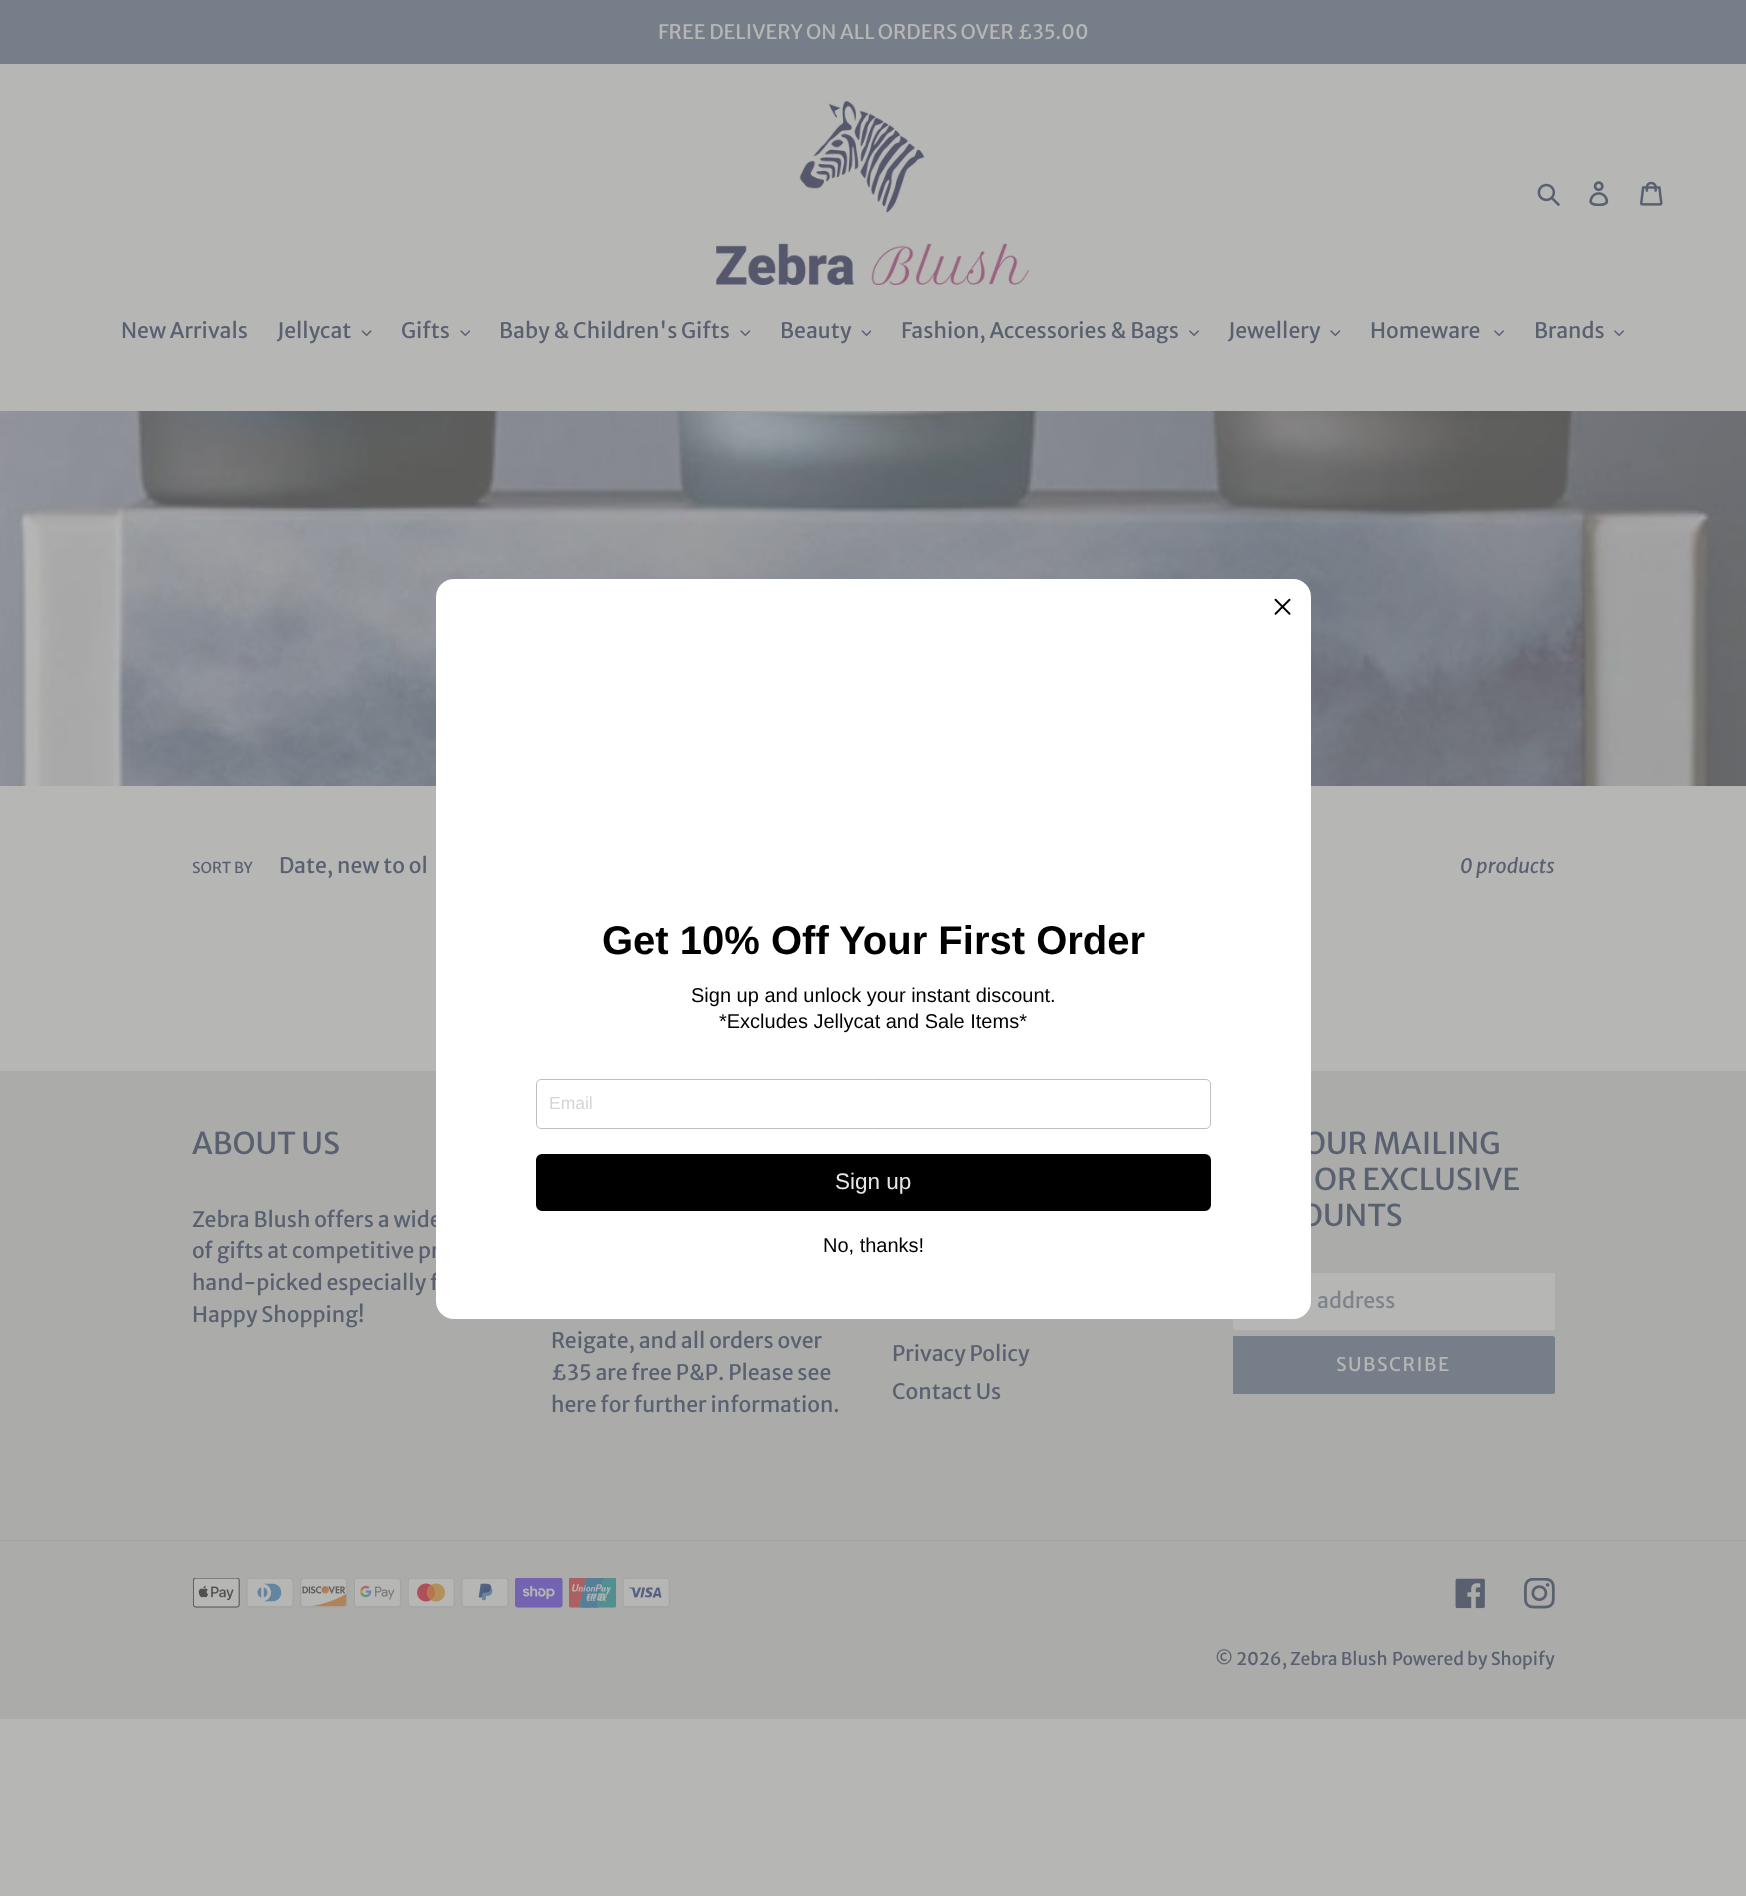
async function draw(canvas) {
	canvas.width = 1746;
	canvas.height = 1896;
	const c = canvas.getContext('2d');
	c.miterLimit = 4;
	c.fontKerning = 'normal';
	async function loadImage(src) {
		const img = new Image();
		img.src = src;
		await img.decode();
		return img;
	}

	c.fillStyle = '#b6b6b5';
	c.fillRect(0, 0, 1746, 1896);
	c.fillStyle = '#767e8a';
	c.fillRect(0, 0, 1746, 64);
	c.font = '20px Merriweather Sans';
	c.fillStyle = '#b6b6b5';
	c.fillText('FREE DELIVERY ON ALL ORDERS OVER £35.00', 658, 39);
	c.drawImage(await loadImage('img1.png'), 716, 101, 313, 184);
	c.drawImage(await loadImage('img2.png'), 1537, 183, 23, 23);
	c.drawImage(await loadImage('img3.png'), 1589, 181, 20, 25);
	c.drawImage(await loadImage('img4.png'), 1640, 181, 23, 25);
	c.font = '21.25px Merriweather Sans';
	c.fillStyle = '#59606f';
	c.fillText('New Arrivals', 121, 338);
	c.fillText('Jellycat', 277, 338);
	c.drawImage(await loadImage('img5.png'), 361, 330, 11, 6);
	c.fillText('Gifts', 401, 338);
	c.drawImage(await loadImage('img6.png'), 460, 330, 10, 6);
	c.fillText('Baby & Children\'s Gifts', 499, 338);
	c.drawImage(await loadImage('img7.png'), 740, 330, 11, 6);
	c.fillText('Beauty', 780, 338);
	c.drawImage(await loadImage('img8.png'), 861, 330, 10, 6);
	c.fillText('Fashion, Accessories & Bags', 901, 338);
	c.drawImage(await loadImage('img9.png'), 1189, 330, 10, 6);
	c.fillText('Jewellery', 1228, 338);
	c.drawImage(await loadImage('img7.png'), 1330, 330, 11, 6);
	c.fillText('Homeware', 1370, 338);
	c.drawImage(await loadImage('img9.png'), 1494, 330, 10, 6);
	c.fillText('Brands', 1534, 338);
	c.drawImage(await loadImage('img9.png'), 1614, 330, 10, 6);
	c.drawImage(await loadImage('img10.png'), 0, 411, 1746, 375);
	c.font = '15px Merriweather Sans';
	c.fillText('SORT BY', 192, 873);
	c.font = '21.25px Merriweather Sans';
	c.fillText('Date, new to ol', 279, 873);
	c.font = 'italic 20px Merriweather Sans';
	c.fillText('0 products', 1460, 873);
	c.fillStyle = '#ababaa';
	c.fillRect(0, 1071, 1746, 648);
	c.font = '30px Merriweather Sans';
	c.fillStyle = '#59606f';
	c.fillText('ABOUT US', 192, 1154);
	c.font = '21.25px Merriweather Sans';
	for (const [text, x, y] of [
		['Zebra Blush offers a wide', 192, 1227],
		['of gifts at competitive pr', 192, 1258],
		['hand-picked especially f', 192, 1290],
		['Happy Shopping!', 192, 1322],
		['Reigate, and all orders over', 551, 1348],
		['£35 are free P&P. Please see', 551, 1380],
		['here for further information.', 551, 1412],
		['Privacy Policy', 892, 1361],
		['Contact Us', 892, 1399],
	]) {
		c.fillText(text, x, y);
	}
	c.font = '30px Merriweather Sans';
	for (const [text, x, y] of [
		['OUR MAILING', 1303, 1154],
		['OR EXCLUSIVE', 1314, 1190],
		['OUNTS', 1300, 1226],
	]) {
		c.fillText(text, x, y);
	}
	c.fillStyle = '#b6b6b5';
	c.beginPath();
	c.roundRect(1233, 1273, 322, 57, [2.5, 0, 0, 2.5]);
	c.fill();
	c.font = '21.25px Merriweather Sans';
	c.fillStyle = '#7e838b';
	c.fillText('address', 1317, 1308);
	c.fillStyle = '#767e8a';
	c.beginPath();
	c.roundRect(1233, 1336, 322, 58, [0, 2.5, 2.5, 0]);
	c.fill();
	c.letterSpacing = '1.5px';
	c.font = '18.75px Merriweather Sans';
	c.fillStyle = '#b6b6b5';
	c.fillText('SUBSCRIBE', 1336, 1371);
	c.fillStyle = '#a1a1a0';
	c.fillRect(0, 1540, 1746, 1);
	c.drawImage(await loadImage('img11.png'), 193, 1578, 47, 30);
	c.drawImage(await loadImage('img12.png'), 246, 1578, 48, 30);
	c.drawImage(await loadImage('img13.png'), 300, 1578, 48, 30);
	c.drawImage(await loadImage('img14.png'), 354, 1578, 47, 30);
	c.drawImage(await loadImage('img15.png'), 408, 1578, 47, 30);
	c.drawImage(await loadImage('img16.png'), 461, 1578, 48, 30);
	c.drawImage(await loadImage('img17.png'), 515, 1578, 48, 30);
	c.drawImage(await loadImage('img18.png'), 569, 1578, 47, 30);
	c.drawImage(await loadImage('img19.png'), 623, 1578, 47, 30);
	c.drawImage(await loadImage('img20.png'), 1455, 1578, 30, 31);
	c.drawImage(await loadImage('img21.png'), 1524, 1578, 31, 31);
	c.letterSpacing = '0px';
	c.font = '17.5px Merriweather Sans';
	c.fillStyle = '#59606f';
	c.fillText('© 2026, Zebra Blush', 1215, 1665);
	c.fillText('Powered by Shopify', 1392, 1665);
	c.fillStyle = '#fff';
	c.beginPath();
	c.roundRect(436, 579, 875, 740, 18);
	c.fill();
	c.drawImage(await loadImage('img22.png'), 1274, 598, 17, 17);
	c.font = 'bold 40px Liberation Sans';
	c.fillStyle = '#000';
	c.fillText('Get 10% Off Your First Order', 602, 954);
	c.font = '20px Liberation Sans';
	c.fillText('Sign up and unlock your instant discount.', 691, 1002);
	c.fillText('*Excludes Jellycat and Sale Items*', 719, 1028);
	c.beginPath();
	c.roundRect(536.5, 1079.5, 674, 49, 4.5);
	c.strokeStyle = '#babfc3';
	c.stroke();
	c.font = '17.5px Liberation Sans';
	c.fillStyle = '#d5d5d5';
	c.fillText('Email', 549, 1109);
	c.fillStyle = '#000';
	c.beginPath();
	c.roundRect(537.5, 1155.5, 672, 54, 4.5);
	c.fill();
	c.strokeStyle = '#000';
	c.lineWidth = 3;
	c.stroke();
	c.font = '22.5px Liberation Sans';
	c.fillStyle = '#e8e8e8';
	c.fillText('Sign up', 835, 1189);
	c.font = '20px Liberation Sans';
	c.fillStyle = '#000';
	c.fillText('No, thanks!', 823, 1252);
}

draw(document.querySelector('canvas'));
